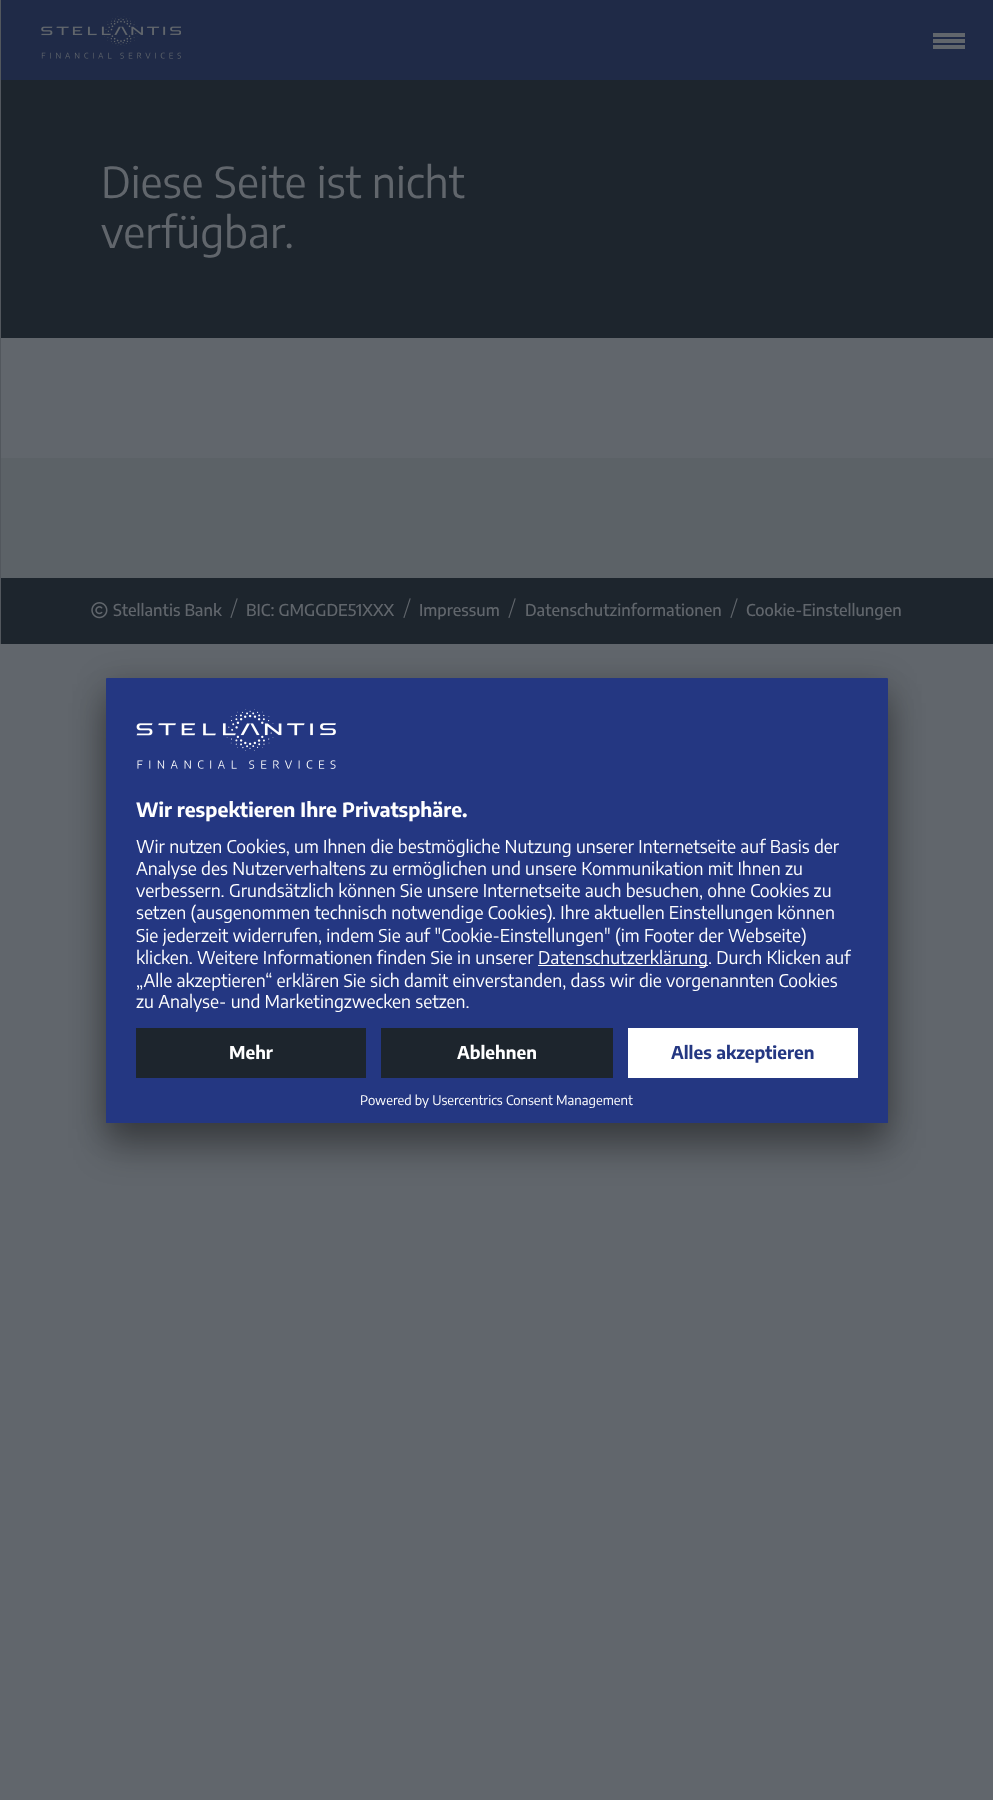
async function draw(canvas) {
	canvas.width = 993;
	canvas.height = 1800;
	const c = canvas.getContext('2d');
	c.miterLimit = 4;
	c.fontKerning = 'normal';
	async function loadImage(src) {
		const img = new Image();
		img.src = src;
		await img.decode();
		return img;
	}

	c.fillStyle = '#61666c';
	c.fillRect(0, 0, 993, 1800);
	c.fillStyle = '#52575d';
	c.fillRect(0, 0, 1, 644);
	c.fillStyle = '#1f2a47';
	c.fillRect(1, 0, 992, 80);
	c.drawImage(await loadImage('img1.png'), 41, 16, 140, 43);
	for (const [x, y, w, h, color] of [
		[933, 33, 32, 4, '#61666c'],
		[933, 39, 32, 4, '#61666c'],
		[933, 45, 32, 4, '#61666c'],
		[1, 80, 992, 258, '#1d252d'],
	]) {
		c.fillStyle = color;
		c.fillRect(x, y, w, h);
	}
	c.font = '42.5px Encode Sans';
	c.fillStyle = '#61666c';
	c.fillText('Diese Seite ist nicht', 101, 198);
	c.fillText('verfügbar.', 101, 248);
	c.fillStyle = '#5c6267';
	c.fillRect(1, 458, 992, 120);
	c.fillStyle = '#1d252d';
	c.fillRect(1, 578, 992, 66);
	c.drawImage(await loadImage('img2.png'), 91, 602, 17, 17);
	c.font = '500 16.25px Encode Sans';
	c.fillStyle = '#61666c';
	c.fillText('Stellantis Bank', 113, 616);
	c.font = '300 20px Encode Sans';
	c.save();
	c.translate(230, 613);
	c.rotate(18 * Math.PI / 180);
	c.fillText('|', 0, 0);
	c.restore();
	c.font = '500 16.25px Encode Sans';
	c.fillText('BIC: GMGGDE51XXX', 246, 616);
	c.font = '300 20px Encode Sans';
	c.save();
	c.translate(403, 613);
	c.rotate(18 * Math.PI / 180);
	c.fillText('|', 0, 0);
	c.restore();
	c.font = '500 16.25px Encode Sans';
	c.fillText('Impressum', 419, 616);
	c.font = '300 20px Encode Sans';
	c.save();
	c.translate(508, 613);
	c.rotate(18 * Math.PI / 180);
	c.fillText('|', 0, 0);
	c.restore();
	c.font = '500 16.25px Encode Sans';
	c.fillText('Datenschutzinformationen', 525, 616);
	c.font = '300 20px Encode Sans';
	c.save();
	c.translate(730, 613);
	c.rotate(18 * Math.PI / 180);
	c.fillText('|', 0, 0);
	c.restore();
	c.font = '500 16.25px Encode Sans';
	c.fillText('Cookie-Einstellungen', 746, 616);
	c.fillStyle = '#0000004d';
	c.filter = 'blur(17.5px)';
	c.beginPath();
	c.roundRect(106, 703, 782, 445, 1);
	c.fill();
	c.filter = 'none';
	c.fillStyle = '#00000038';
	c.filter = 'blur(16px)';
	c.beginPath();
	c.roundRect(106, 684, 782, 445, 1);
	c.fill();
	c.filter = 'none';
	c.fillStyle = '#243782';
	c.beginPath();
	c.roundRect(106, 678, 782, 445, 1);
	c.fill();
	c.drawImage(await loadImage('img3.png'), 136, 709, 200, 60);
	c.font = 'bold 19.7px Encode Sans';
	c.fillStyle = '#fff';
	c.fillText('Wir respektieren Ihre Privatsphäre.', 136, 817);
	c.font = '17.5px Encode Sans';
	for (const [text, x, y] of [
		['Wir nutzen Cookies, um Ihnen die bestmögliche Nutzung unserer Internetseite auf Basis der', 136, 853],
		['Analyse des Nutzerverhaltens zu ermöglichen und unsere Kommunikation mit Ihnen zu', 136, 875],
		['verbessern. Grundsätzlich können Sie unsere Internetseite auch besuchen, ohne Cookies zu', 136, 897],
		['setzen (ausgenommen technisch notwendige Cookies). Ihre aktuellen Einstellungen können', 136, 919],
		['Sie jederzeit widerrufen, indem Sie auf "Cookie-Einstellungen" (im Footer der Webseite)', 136, 942],
		['klicken. Weitere Informationen finden Sie in unserer', 136, 964],
	]) {
		c.fillText(text, x, y);
	}
	c.fillRect(538, 965, 170, 1);
	for (const [text, x, y] of [
		['Datenschutzerklärung. Durch Klicken auf', 538, 964],
		['„Alle akzeptieren“ erklären Sie sich damit einverstanden, dass wir die vorgenannten Cookies', 136, 987],
		['zu Analyse- und Marketingzwecken setzen.', 136, 1008],
	]) {
		c.fillText(text, x, y);
	}
	c.fillStyle = '#243782';
	c.beginPath();
	c.roundRect(106, 1018, 782, 105, [0, 0, 1, 1]);
	c.fill();
	c.fillStyle = '#1d252d';
	c.fillRect(136, 1028, 230, 50);
	c.font = 'bold 17.5px Encode Sans';
	c.fillStyle = '#fff';
	c.fillText('Mehr', 229, 1059);
	c.fillStyle = '#1d252d';
	c.fillRect(381, 1028, 232, 50);
	c.fillStyle = '#fff';
	c.fillText('Ablehnen', 457, 1059);
	c.fillRect(628, 1028, 230, 50);
	c.fillStyle = '#243782';
	c.fillText('Alles akzeptieren', 671, 1059);
	c.font = '13.1px Encode Sans';
	c.fillStyle = '#fff';
	c.fillText('Powered by Usercentrics Consent Management', 360, 1105);
}

draw(document.querySelector('canvas'));
